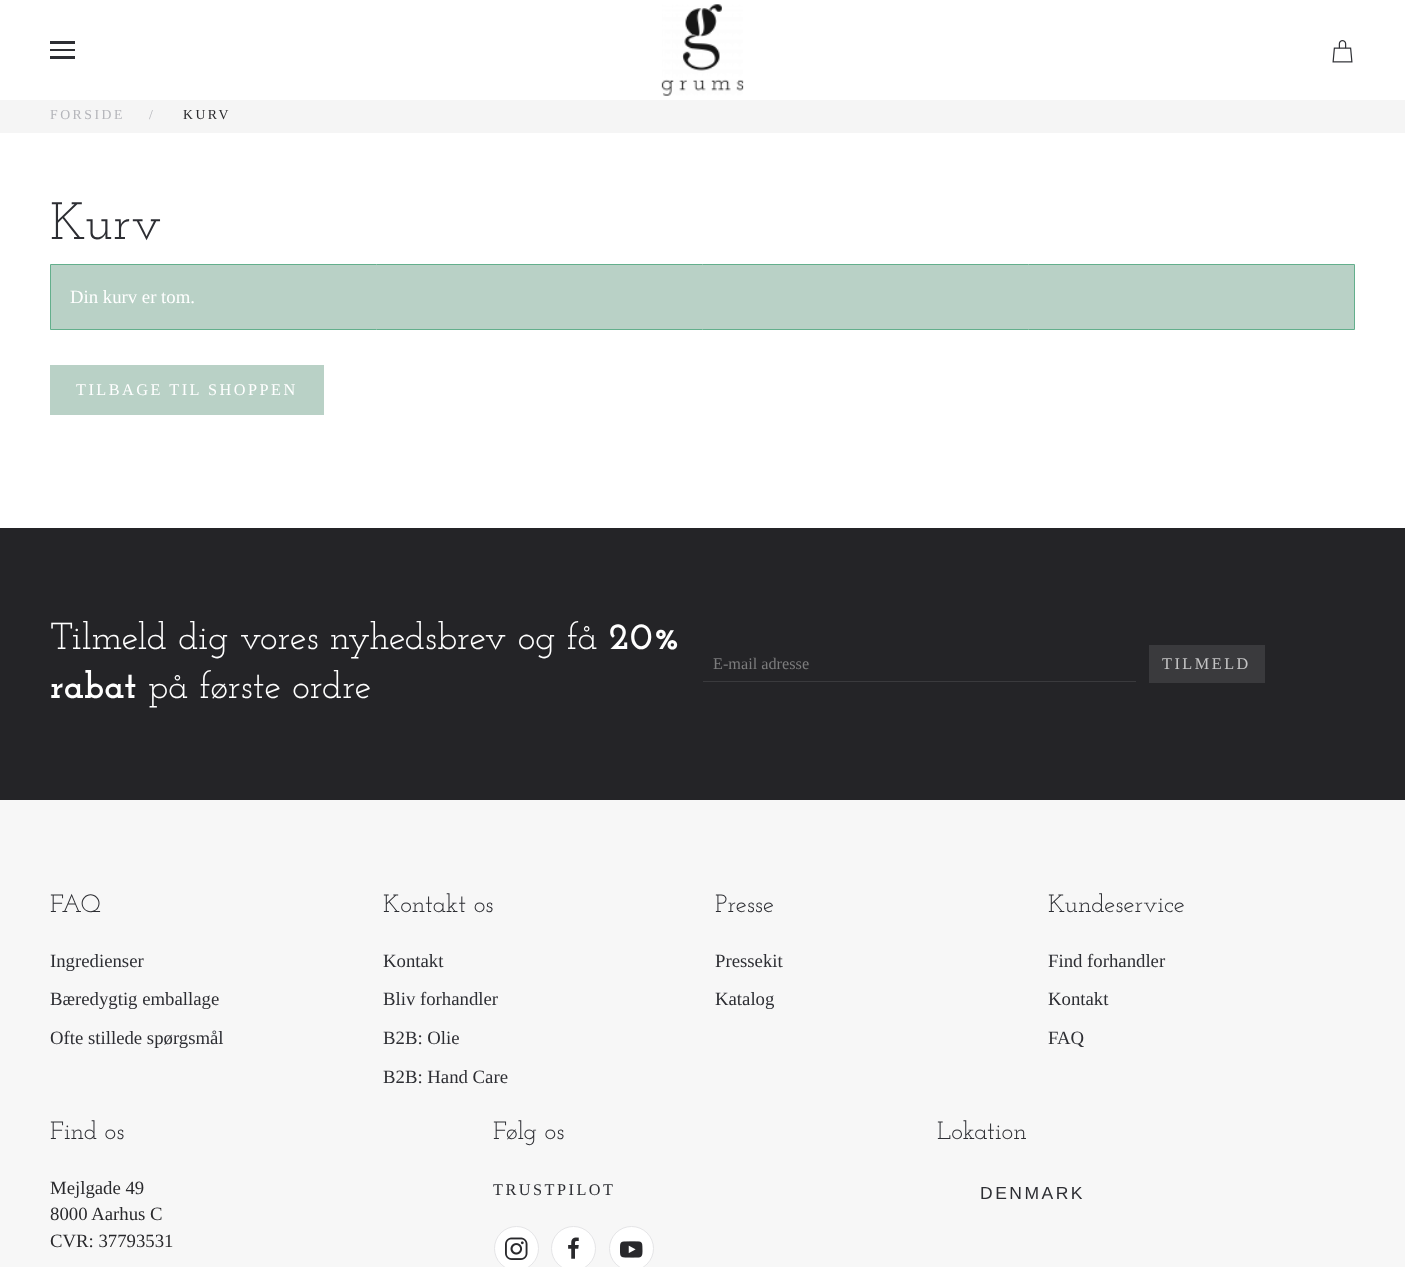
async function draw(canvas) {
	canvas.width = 1405;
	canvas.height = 1267;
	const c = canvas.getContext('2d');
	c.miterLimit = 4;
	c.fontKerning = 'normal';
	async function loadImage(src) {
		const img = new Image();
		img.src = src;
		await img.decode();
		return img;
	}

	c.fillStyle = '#fff';
	c.fillRect(0, 0, 1405, 1267);
	for (const [x, y, w, h, color] of [
		[50, 41, 25, 3, '#2d2e33'],
		[50, 49, 25, 2, '#2d2e33'],
		[50, 56, 25, 3, '#2d2e33'],
	]) {
		c.fillStyle = color;
		c.fillRect(x, y, w, h);
	}
	c.drawImage(await loadImage('img1.png'), 661, 4, 83, 92);
	c.drawImage(await loadImage('img2.png'), 1332, 40, 21, 23);
	c.fillStyle = '#f5f5f5';
	c.fillRect(0, 100, 1405, 33);
	c.letterSpacing = '2.5px';
	c.font = '13.75px Liberation Serif';
	c.fillStyle = '#b4b5ba';
	c.fillText('FORSIDE', 50, 119);
	c.letterSpacing = '0px';
	c.fillText('/', 149, 119);
	c.letterSpacing = '2.5px';
	c.fillStyle = '#29292c';
	c.fillText('KURV', 183, 119);
	c.letterSpacing = '0px';
	c.font = '52.5px Josefin Slab';
	c.fillStyle = '#2d2e33';
	c.fillText('Kurv', 50, 239);
	c.fillStyle = '#b9d1c6';
	c.beginPath();
	c.rect(50.5, 264.5, 1304, 65);
	c.fill();
	c.strokeStyle = '#63af8c';
	c.stroke();
	c.font = '18.75px Liberation Serif';
	c.fillStyle = '#fff';
	c.fillText('Din kurv er tom.', 70, 303);
	c.fillStyle = '#b9d1c6';
	c.fillRect(50, 365, 274, 50);
	c.letterSpacing = '2.5px';
	c.font = '16.25px Liberation Serif';
	c.fillStyle = '#fff';
	c.fillText('TILBAGE TIL SHOPPEN', 76, 395);
	c.fillStyle = '#242427';
	c.fillRect(0, 528, 1405, 272);
	c.letterSpacing = '0px';
	c.font = '37.5px Josefin Slab';
	c.fillStyle = '#fff';
	c.fillText('Tilmeld dig vores nyhedsbrev og få', 50, 649);
	c.font = 'bold 37.5px Josefin Slab';
	c.fillText('20%', 609, 649);
	c.fillText('rabat', 50, 698);
	c.font = '37.5px Josefin Slab';
	c.fillText('på første ordre', 148, 698);
	c.fillStyle = '#3a3a3d';
	c.fillRect(703, 681, 433, 1);
	c.font = '16.25px Liberation Serif';
	c.fillStyle = '#7c7c7d';
	c.fillText('E-mail adresse', 713, 669);
	c.fillStyle = '#3a3a3d';
	c.fillRect(1149, 645, 116, 38);
	c.letterSpacing = '2.5px';
	c.fillStyle = '#c4c4c5';
	c.fillText('TILMELD', 1162, 669);
	c.fillStyle = '#f7f7f7';
	c.fillRect(0, 800, 1405, 467);
	c.letterSpacing = '0px';
	c.font = '25px Josefin Slab';
	c.fillStyle = '#2d2e33';
	c.fillText('FAQ', 50, 912);
	c.font = '18.75px Liberation Serif';
	for (const [text, x, y] of [
		['Ingredienser', 50, 967],
		['Bæredygtig emballage', 50, 1005],
		['Ofte stillede spørgsmål', 50, 1044],
	]) {
		c.fillText(text, x, y);
	}
	c.font = '25px Josefin Slab';
	c.fillText('Kontakt os', 383, 912);
	c.font = '18.75px Liberation Serif';
	for (const [text, x, y] of [
		['Kontakt', 383, 967],
		['Bliv forhandler', 383, 1005],
		['B2B: Olie', 383, 1044],
		['B2B: Hand Care', 383, 1083],
	]) {
		c.fillText(text, x, y);
	}
	c.font = '25px Josefin Slab';
	c.fillText('Presse', 715, 912);
	c.font = '18.75px Liberation Serif';
	c.fillText('Pressekit', 715, 967);
	c.fillText('Katalog', 715, 1005);
	c.font = '25px Josefin Slab';
	c.fillText('Kundeservice', 1048, 912);
	c.font = '18.75px Liberation Serif';
	for (const [text, x, y] of [
		['Find forhandler', 1048, 967],
		['Kontakt', 1048, 1005],
		['FAQ', 1048, 1044],
	]) {
		c.fillText(text, x, y);
	}
	c.font = '25px Josefin Slab';
	c.fillText('Find os', 50, 1139);
	c.font = '18.75px Liberation Serif';
	c.fillStyle = '#29292c';
	for (const [text, x, y] of [
		['Mejlgade 49', 50, 1194],
		['8000 Aarhus C', 50, 1220],
		['CVR: 37793531', 50, 1247],
	]) {
		c.fillText(text, x, y);
	}
	c.font = '25px Josefin Slab';
	c.fillStyle = '#2d2e33';
	c.fillText('Følg os', 493, 1139);
	c.letterSpacing = '2.5px';
	c.font = '16.25px Liberation Serif';
	c.fillText('TRUSTPILOT', 493, 1195);
	c.fillStyle = '#fff';
	c.beginPath();
	c.arc(516.5, 1248.5, 22, 0, 2 * Math.PI);
	c.fill();
	c.strokeStyle = '#e5e5e7';
	c.stroke();
	c.drawImage(await loadImage('img3.png'), 505, 1237, 23, 23);
	c.beginPath();
	c.arc(573.5, 1248.5, 22, 0, 2 * Math.PI);
	c.fill();
	c.stroke();
	c.drawImage(await loadImage('img4.png'), 568, 1237, 11, 22);
	c.beginPath();
	c.arc(631.5, 1248.5, 22, 0, 2 * Math.PI);
	c.fill();
	c.stroke();
	c.drawImage(await loadImage('img5.png'), 620, 1241, 23, 17);
	c.letterSpacing = '0px';
	c.font = '25px Josefin Slab';
	c.fillStyle = '#2d2e33';
	c.fillText('Lokation', 937, 1139);
	c.letterSpacing = '2.5px';
	c.font = '17.5px Liberation Sans';
	c.fillText('DENMARK', 980, 1199);
}

draw(document.querySelector('canvas'));
